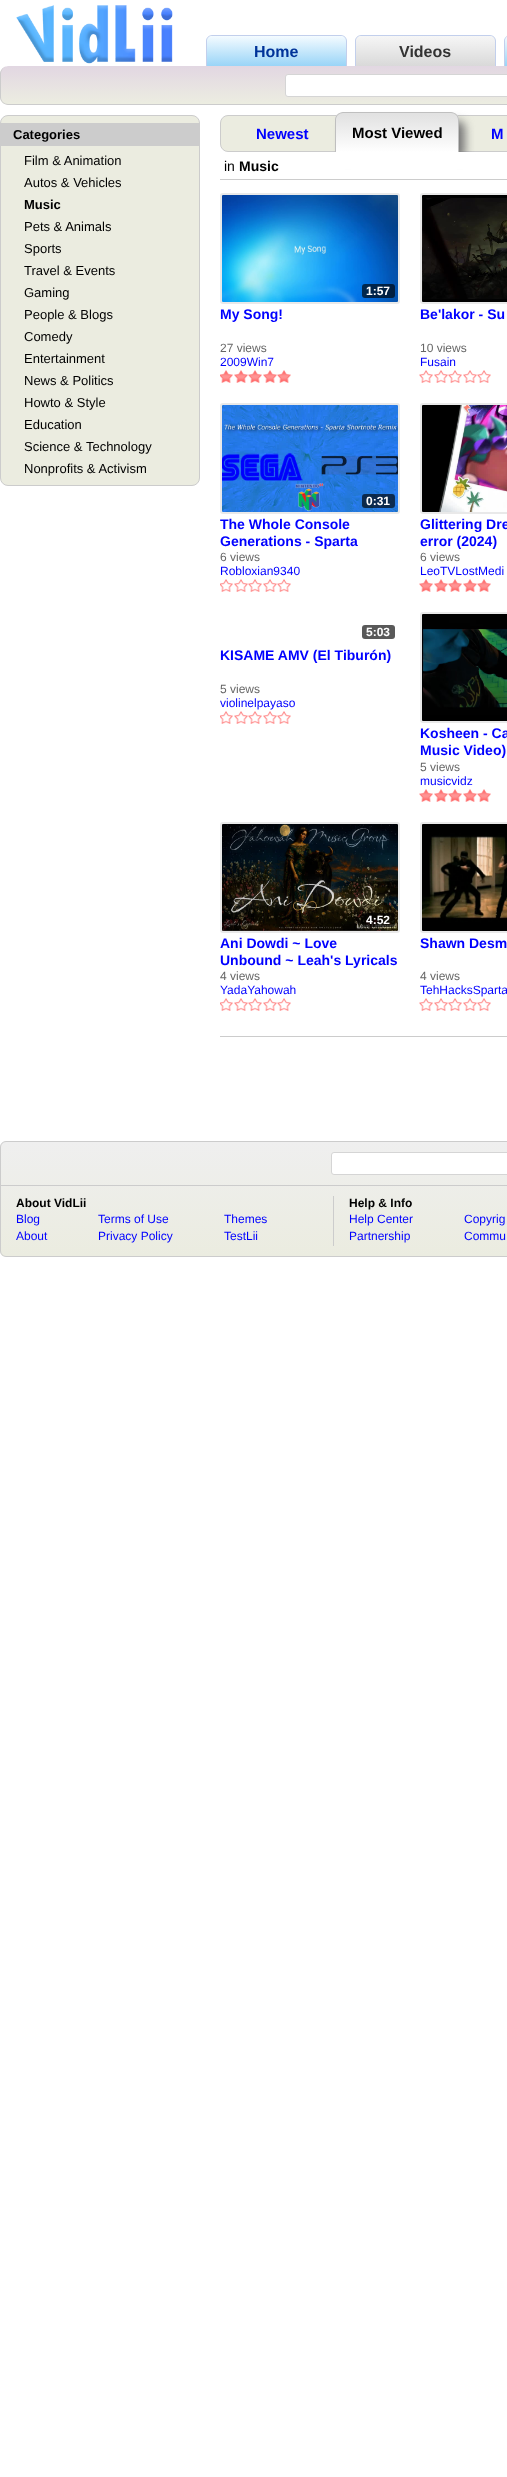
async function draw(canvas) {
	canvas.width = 507;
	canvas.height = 2477;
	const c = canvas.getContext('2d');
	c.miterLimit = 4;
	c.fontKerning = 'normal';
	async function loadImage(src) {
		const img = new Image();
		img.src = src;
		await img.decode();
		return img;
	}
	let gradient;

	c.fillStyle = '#fff';
	c.fillRect(0, 0, 507, 2477);
	c.drawImage(await loadImage('img1.png'), 16, 5, 157, 59);
	c.save();
	c.beginPath();
	c.roundRect(206, 35, 141, 32, [6, 6, 0, 0]);
	c.clip();
	gradient = c.createLinearGradient(277, 36, 277, 67);
	gradient.addColorStop(0, '#f4fbff');
	gradient.addColorStop(1, '#96d3f7');
	c.fillStyle = gradient;
	c.fillRect(206, 36, 141, 30);
	c.restore();
	c.fillStyle = '#c2cfec';
	c.beginPath();
	c.moveTo(212, 35);
	c.lineTo(341, 35);
	c.bezierCurveTo(344, 35, 347, 38, 347, 41);
	c.lineTo(347, 67);
	c.lineTo(206, 67);
	c.lineTo(206, 41);
	c.bezierCurveTo(206, 38, 209, 35, 212, 35);
	c.closePath();
	c.moveTo(212, 36);
	c.lineTo(341, 36);
	c.bezierCurveTo(344, 36, 346, 38, 346, 41);
	c.lineTo(346, 67);
	c.lineTo(207, 67);
	c.lineTo(207, 41);
	c.bezierCurveTo(207, 38, 209, 36, 212, 36);
	c.closePath();
	c.fill('evenodd');
	c.font = 'bold 16px Liberation Sans';
	c.fillStyle = '#039';
	c.fillText('Home', 254, 57);
	c.save();
	c.beginPath();
	c.roundRect(355, 35, 141, 32, [6, 6, 0, 0]);
	c.clip();
	gradient = c.createLinearGradient(426, 36, 426, 67);
	gradient.addColorStop(0, '#f6f6f6');
	gradient.addColorStop(1, '#d8d8d8');
	c.fillStyle = gradient;
	c.fillRect(355, 36, 141, 30);
	c.restore();
	c.fillStyle = '#c2cfec';
	c.beginPath();
	c.moveTo(361, 35);
	c.lineTo(490, 35);
	c.bezierCurveTo(493, 35, 496, 38, 496, 41);
	c.lineTo(496, 67);
	c.lineTo(355, 67);
	c.lineTo(355, 41);
	c.bezierCurveTo(355, 38, 358, 35, 361, 35);
	c.closePath();
	c.moveTo(361, 36);
	c.lineTo(490, 36);
	c.bezierCurveTo(493, 36, 495, 38, 495, 41);
	c.lineTo(495, 67);
	c.lineTo(356, 67);
	c.lineTo(356, 41);
	c.bezierCurveTo(356, 38, 358, 36, 361, 36);
	c.closePath();
	c.fill('evenodd');
	c.fillStyle = '#333';
	c.fillText('Videos', 399, 57);
	c.save();
	c.beginPath();
	c.moveTo(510, 35);
	c.lineTo(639, 35);
	c.bezierCurveTo(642.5, 35, 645, 37.5, 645, 41);
	c.lineTo(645, 67);
	c.lineTo(504, 67);
	c.lineTo(504, 41);
	c.bezierCurveTo(504, 37.5, 506.5, 35, 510, 35);
	c.closePath();
	c.clip();
	gradient = c.createLinearGradient(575, 5, 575, 36);
	gradient.addColorStop(0, '#f4fbff');
	gradient.addColorStop(1, '#96d3f7');
	c.fillStyle = gradient;
	c.fillRect(504, 35, 3, 1);
	gradient = c.createLinearGradient(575, 36, 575, 67);
	gradient.addColorStop(0, '#f4fbff');
	gradient.addColorStop(1, '#96d3f7');
	c.fillStyle = gradient;
	c.fillRect(504, 36, 3, 31);
	c.restore();
	c.fillStyle = '#c2cfec';
	c.beginPath();
	c.moveTo(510, 35);
	c.lineTo(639, 35);
	c.bezierCurveTo(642, 35, 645, 38, 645, 41);
	c.lineTo(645, 67);
	c.lineTo(504, 67);
	c.lineTo(504, 41);
	c.bezierCurveTo(504, 38, 507, 35, 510, 35);
	c.closePath();
	c.moveTo(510, 36);
	c.lineTo(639, 36);
	c.bezierCurveTo(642, 36, 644, 38, 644, 41);
	c.lineTo(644, 67);
	c.lineTo(505, 67);
	c.lineTo(505, 41);
	c.bezierCurveTo(505, 38, 507, 36, 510, 36);
	c.closePath();
	c.fill('evenodd');
	c.save();
	c.beginPath();
	c.roundRect(0, 66, 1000, 39, 8);
	c.clip();
	gradient = c.createLinearGradient(500, 66, 500, 104);
	gradient.addColorStop(0.01, '#e2d7e2');
	gradient.addColorStop(1, '#ecede1');
	c.fillStyle = gradient;
	c.beginPath();
	c.moveTo(8, 66);
	c.lineTo(507, 66);
	c.bezierCurveTo(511.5, 66, 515, 69.5, 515, 74);
	c.lineTo(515, 104);
	c.lineTo(0, 104);
	c.lineTo(0, 74);
	c.bezierCurveTo(0, 69.5, 3.5, 66, 8, 66);
	c.closePath();
	c.fill();
	c.restore();
	c.fillStyle = '#ccc';
	c.beginPath();
	c.moveTo(8, 66);
	c.lineTo(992, 66);
	c.bezierCurveTo(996, 66, 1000, 70, 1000, 74);
	c.lineTo(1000, 97);
	c.bezierCurveTo(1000, 101, 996, 105, 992, 105);
	c.lineTo(8, 105);
	c.bezierCurveTo(4, 105, 0, 101, 0, 97);
	c.lineTo(0, 74);
	c.bezierCurveTo(0, 70, 4, 66, 8, 66);
	c.closePath();
	c.moveTo(8, 66);
	c.lineTo(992, 66);
	c.bezierCurveTo(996, 66, 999, 70, 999, 74);
	c.lineTo(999, 97);
	c.bezierCurveTo(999, 101, 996, 104, 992, 104);
	c.lineTo(8, 104);
	c.bezierCurveTo(4, 104, 1, 101, 1, 97);
	c.lineTo(1, 74);
	c.bezierCurveTo(1, 70, 4, 66, 8, 66);
	c.closePath();
	c.fill('evenodd');
	c.fillStyle = '#fff';
	c.beginPath();
	c.roundRect(285.5, 74.5, 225, 22, 2.5);
	c.fill();
	c.strokeStyle = '#d5d5d5';
	c.stroke();
	c.fillStyle = '#ebece0';
	c.beginPath();
	c.roundRect(0.5, 115.5, 199, 370, 7.5);
	c.fill();
	c.strokeStyle = '#ccc';
	c.stroke();
	c.fillStyle = '#ccc';
	c.fillRect(1, 123, 198, 23);
	c.font = 'bold 13px Liberation Sans';
	c.fillStyle = '#000';
	c.fillText('Categories', 13, 139);
	c.font = '13px Liberation Sans';
	c.fillText('Film & Animation', 24, 165);
	c.fillText('Autos & Vehicles', 24, 187);
	c.font = 'bold 13px Liberation Sans';
	c.fillText('Music', 24, 209);
	c.font = '13px Liberation Sans';
	for (const [text, x, y] of [
		['Pets & Animals', 24, 231],
		['Sports', 24, 253],
		['Travel & Events', 24, 275],
		['Gaming', 24, 297],
		['People & Blogs', 24, 319],
		['Comedy', 24, 341],
		['Entertainment', 24, 363],
		['News & Politics', 24, 385],
		['Howto & Style', 24, 407],
		['Education', 24, 429],
		['Science & Technology', 24, 451],
		['Nonprofits & Activism', 24, 473],
	]) {
		c.fillText(text, x, y);
	}
	c.fillStyle = '#ebece0';
	c.beginPath();
	c.roundRect(220.5, 115.5, 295, 36, 7.5);
	c.fill();
	c.stroke();
	c.font = 'bold 15px Liberation Sans';
	c.fillStyle = '#00f';
	c.fillText('Newest', 256, 139);
	c.fillStyle = '#777';
	c.filter = 'blur(5px)';
	c.beginPath();
	c.roundRect(343, 121, 122, 38, 7);
	c.fill();
	c.filter = 'none';
	c.save();
	c.beginPath();
	c.roundRect(335, 112, 124, 40, [8, 8, 0, 0]);
	c.clip();
	gradient = c.createLinearGradient(397, 113, 397, 152);
	gradient.addColorStop(0.05, '#e2e2e2');
	gradient.addColorStop(1, '#fff');
	c.fillStyle = gradient;
	c.fillRect(335, 113, 124, 39);
	c.restore();
	c.fillStyle = '#bfbfbf';
	c.beginPath();
	c.moveTo(343, 112);
	c.lineTo(451, 112);
	c.bezierCurveTo(455, 112, 459, 116, 459, 120);
	c.lineTo(459, 152);
	c.lineTo(335, 152);
	c.lineTo(335, 120);
	c.bezierCurveTo(335, 116, 339, 112, 343, 112);
	c.closePath();
	c.moveTo(343, 113);
	c.lineTo(451, 113);
	c.bezierCurveTo(455, 113, 458, 116, 458, 120);
	c.lineTo(458, 152);
	c.lineTo(336, 152);
	c.lineTo(336, 120);
	c.bezierCurveTo(336, 116, 339, 113, 343, 113);
	c.closePath();
	c.fill('evenodd');
	c.fillStyle = '#000';
	c.fillText('Most Viewed', 352, 138);
	c.fillStyle = '#00f';
	c.fillText('M', 491, 139);
	c.fillStyle = '#ccc';
	c.fillRect(220, 179, 287, 1);
	c.font = '14px Liberation Sans';
	c.fillStyle = '#000';
	c.fillText('in', 224, 171);
	c.font = 'bold 14px Liberation Sans';
	c.fillText('Music', 239, 171);
	c.fillStyle = '#fff';
	c.fillRect(333, 152, 142, 17);
	c.beginPath();
	c.roundRect(221, 194, 178, 109, 2);
	c.strokeStyle = '#e9e9e9';
	c.lineWidth = 2;
	c.stroke();
	c.drawImage(await loadImage('img2.png'), 222, 195, 176, 107);
	c.fillStyle = '#000000a6';
	c.beginPath();
	c.roundRect(362, 284, 33, 14, 3);
	c.fill();
	c.font = 'bold 12px Liberation Sans';
	c.fillStyle = '#fff';
	c.fillText('1:57', 366, 295);
	c.font = 'bold 14px Liberation Sans';
	c.fillStyle = '#00f';
	c.fillText('My Song!', 220, 319);
	c.font = '12px Liberation Sans';
	c.fillStyle = '#666';
	c.fillText('27 views', 220, 352);
	c.fillStyle = '#00f';
	c.fillText('2009Win7', 220, 366);
	c.drawImage(await loadImage('img3.png'), 220, 370, 13, 13);
	c.drawImage(await loadImage('img4.png'), 234, 370, 14, 13);
	c.drawImage(await loadImage('img5.png'), 248, 370, 14, 13);
	c.drawImage(await loadImage('img5.png'), 263, 370, 14, 13);
	c.drawImage(await loadImage('img5.png'), 277, 370, 14, 13);
	c.beginPath();
	c.roundRect(421, 194, 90, 109, 2);
	c.stroke();
	c.drawImage(await loadImage('img6.png'), 422, 195, 85, 107);
	c.font = 'bold 14px Liberation Sans';
	c.fillText('Be\'lakor - Su', 420, 319);
	c.font = '12px Liberation Sans';
	c.fillStyle = '#666';
	c.fillText('10 views', 420, 352);
	c.fillStyle = '#00f';
	c.fillText('Fusain', 420, 366);
	c.drawImage(await loadImage('img7.png'), 419, 370, 14, 13);
	c.drawImage(await loadImage('img7.png'), 434, 370, 14, 13);
	c.drawImage(await loadImage('img7.png'), 448, 370, 14, 13);
	c.drawImage(await loadImage('img8.png'), 463, 370, 14, 13);
	c.drawImage(await loadImage('img8.png'), 477, 370, 14, 13);
	c.beginPath();
	c.roundRect(221, 404, 178, 109, 2);
	c.stroke();
	c.drawImage(await loadImage('img9.png'), 222, 405, 176, 107);
	c.fillStyle = '#000000a6';
	c.beginPath();
	c.roundRect(362, 494, 33, 14, 3);
	c.fill();
	c.font = 'bold 12px Liberation Sans';
	c.fillStyle = '#fff';
	c.fillText('0:31', 366, 505);
	c.font = 'bold 14px Liberation Sans';
	c.fillStyle = '#00f';
	c.fillText('The Whole Console', 220, 529);
	c.fillText('Generations - Sparta', 220, 546);
	c.font = '12px Liberation Sans';
	c.fillStyle = '#666';
	c.fillText('6 views', 220, 561);
	c.fillStyle = '#00f';
	c.fillText('Robloxian9340', 220, 575);
	c.drawImage(await loadImage('img10.png'), 220, 579, 13, 13);
	c.drawImage(await loadImage('img7.png'), 234, 579, 14, 13);
	c.drawImage(await loadImage('img11.png'), 248, 579, 14, 13);
	c.drawImage(await loadImage('img11.png'), 263, 579, 14, 13);
	c.drawImage(await loadImage('img11.png'), 277, 579, 14, 13);
	c.beginPath();
	c.roundRect(421, 404, 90, 109, 2);
	c.stroke();
	c.drawImage(await loadImage('img12.png'), 422, 405, 85, 107);
	c.font = 'bold 14px Liberation Sans';
	c.fillText('Glittering Dre', 420, 529);
	c.fillText('error (2024)', 420, 546);
	c.font = '12px Liberation Sans';
	c.fillStyle = '#666';
	c.fillText('6 views', 420, 561);
	c.fillStyle = '#00f';
	c.fillText('LeoTVLostMedi', 420, 575);
	c.drawImage(await loadImage('img4.png'), 419, 579, 14, 13);
	c.drawImage(await loadImage('img4.png'), 434, 579, 14, 13);
	c.drawImage(await loadImage('img4.png'), 448, 579, 14, 13);
	c.drawImage(await loadImage('img13.png'), 463, 579, 14, 13);
	c.drawImage(await loadImage('img13.png'), 477, 579, 14, 13);
	c.fillStyle = '#595959';
	c.beginPath();
	c.roundRect(362, 625, 33, 14, 3);
	c.fill();
	c.font = 'bold 12px Liberation Sans';
	c.fillStyle = '#fff';
	c.fillText('5:03', 366, 636);
	c.font = 'bold 14px Liberation Sans';
	c.fillStyle = '#00f';
	c.fillText('KISAME AMV (El Tiburón)', 220, 660);
	c.font = '12px Liberation Sans';
	c.fillStyle = '#666';
	c.fillText('5 views', 220, 693);
	c.fillStyle = '#00f';
	c.fillText('violinelpayaso', 220, 707);
	c.drawImage(await loadImage('img10.png'), 220, 711, 13, 13);
	c.drawImage(await loadImage('img7.png'), 234, 711, 14, 13);
	c.drawImage(await loadImage('img11.png'), 248, 711, 14, 13);
	c.drawImage(await loadImage('img11.png'), 263, 711, 14, 13);
	c.drawImage(await loadImage('img11.png'), 277, 711, 14, 13);
	c.beginPath();
	c.roundRect(421, 613, 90, 109, 2);
	c.stroke();
	c.drawImage(await loadImage('img14.png'), 422, 614, 85, 107);
	c.font = 'bold 14px Liberation Sans';
	c.fillText('Kosheen - Ca', 420, 738);
	c.fillText('Music Video)', 420, 755);
	c.font = '12px Liberation Sans';
	c.fillStyle = '#666';
	c.fillText('5 views', 420, 771);
	c.fillStyle = '#00f';
	c.fillText('musicvidz', 420, 785);
	c.drawImage(await loadImage('img4.png'), 419, 789, 14, 13);
	c.drawImage(await loadImage('img4.png'), 434, 789, 14, 13);
	c.drawImage(await loadImage('img4.png'), 448, 789, 14, 13);
	c.drawImage(await loadImage('img13.png'), 463, 789, 14, 13);
	c.drawImage(await loadImage('img13.png'), 477, 789, 14, 13);
	c.beginPath();
	c.roundRect(221, 823, 178, 109, 2);
	c.stroke();
	c.drawImage(await loadImage('img15.png'), 222, 824, 176, 107);
	c.fillStyle = '#000000a6';
	c.beginPath();
	c.roundRect(362, 913, 33, 14, 3);
	c.fill();
	c.font = 'bold 12px Liberation Sans';
	c.fillStyle = '#fff';
	c.fillText('4:52', 366, 924);
	c.font = 'bold 14px Liberation Sans';
	c.fillStyle = '#00f';
	c.fillText('Ani Dowdi ~ Love', 220, 948);
	c.fillText('Unbound ~ Leah\'s Lyricals', 220, 965);
	c.font = '12px Liberation Sans';
	c.fillStyle = '#666';
	c.fillText('4 views', 220, 980);
	c.fillStyle = '#00f';
	c.fillText('YadaYahowah', 220, 994);
	c.drawImage(await loadImage('img10.png'), 220, 998, 13, 13);
	c.drawImage(await loadImage('img7.png'), 234, 998, 14, 13);
	c.drawImage(await loadImage('img11.png'), 248, 998, 14, 13);
	c.drawImage(await loadImage('img11.png'), 263, 998, 14, 13);
	c.drawImage(await loadImage('img11.png'), 277, 998, 14, 13);
	c.beginPath();
	c.roundRect(421, 823, 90, 109, 2);
	c.stroke();
	c.drawImage(await loadImage('img16.png'), 422, 824, 85, 107);
	c.font = 'bold 14px Liberation Sans';
	c.fillText('Shawn Desm', 420, 948);
	c.font = '12px Liberation Sans';
	c.fillStyle = '#666';
	c.fillText('4 views', 420, 980);
	c.fillStyle = '#00f';
	c.fillText('TehHacksSparta', 420, 994);
	c.drawImage(await loadImage('img7.png'), 419, 998, 14, 13);
	c.drawImage(await loadImage('img7.png'), 434, 998, 14, 13);
	c.drawImage(await loadImage('img7.png'), 448, 998, 14, 13);
	c.drawImage(await loadImage('img8.png'), 463, 998, 14, 13);
	c.drawImage(await loadImage('img8.png'), 477, 998, 14, 13);
	c.fillStyle = '#ccc';
	c.fillRect(220, 1036, 287, 1);
	c.save();
	c.beginPath();
	c.roundRect(0, 1141, 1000, 116, 6);
	c.clip();
	gradient = c.createLinearGradient(500, 1142, 500, 1256);
	gradient.addColorStop(0, '#efefef');
	gradient.addColorStop(1, '#ebece0');
	c.fillStyle = gradient;
	c.fillRect(0, 1142, 507, 114);
	c.restore();
	c.beginPath();
	c.roundRect(0.5, 1141.5, 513, 115, 5.5);
	c.strokeStyle = '#ccc';
	c.lineWidth = 1;
	c.stroke();
	c.fillRect(1, 1185, 506, 1);
	c.fillStyle = '#fff';
	c.beginPath();
	c.roundRect(331.5, 1152.5, 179, 22, 2.5);
	c.fill();
	c.strokeStyle = '#d5d5d5';
	c.stroke();
	c.fillStyle = '#ccc';
	c.fillRect(333, 1196, 1, 50);
	c.font = 'bold 12px Liberation Sans';
	c.fillStyle = '#000';
	c.fillText('About VidLii', 16, 1207);
	c.font = '12px Liberation Sans';
	c.fillStyle = '#00f';
	for (const [text, x, y] of [
		['Blog', 16, 1223],
		['About', 16, 1240],
		['Terms of Use', 98, 1223],
		['Privacy Policy', 98, 1240],
		['Themes', 224, 1223],
		['TestLii', 224, 1240],
	]) {
		c.fillText(text, x, y);
	}
	c.font = 'bold 12px Liberation Sans';
	c.fillStyle = '#000';
	c.fillText('Help & Info', 349, 1207);
	c.font = '12px Liberation Sans';
	c.fillStyle = '#00f';
	for (const [text, x, y] of [
		['Help Center', 349, 1223],
		['Partnership', 349, 1240],
		['Copyrig', 464, 1223],
		['Commu', 464, 1240],
	]) {
		c.fillText(text, x, y);
	}
}

draw(document.querySelector('canvas'));
